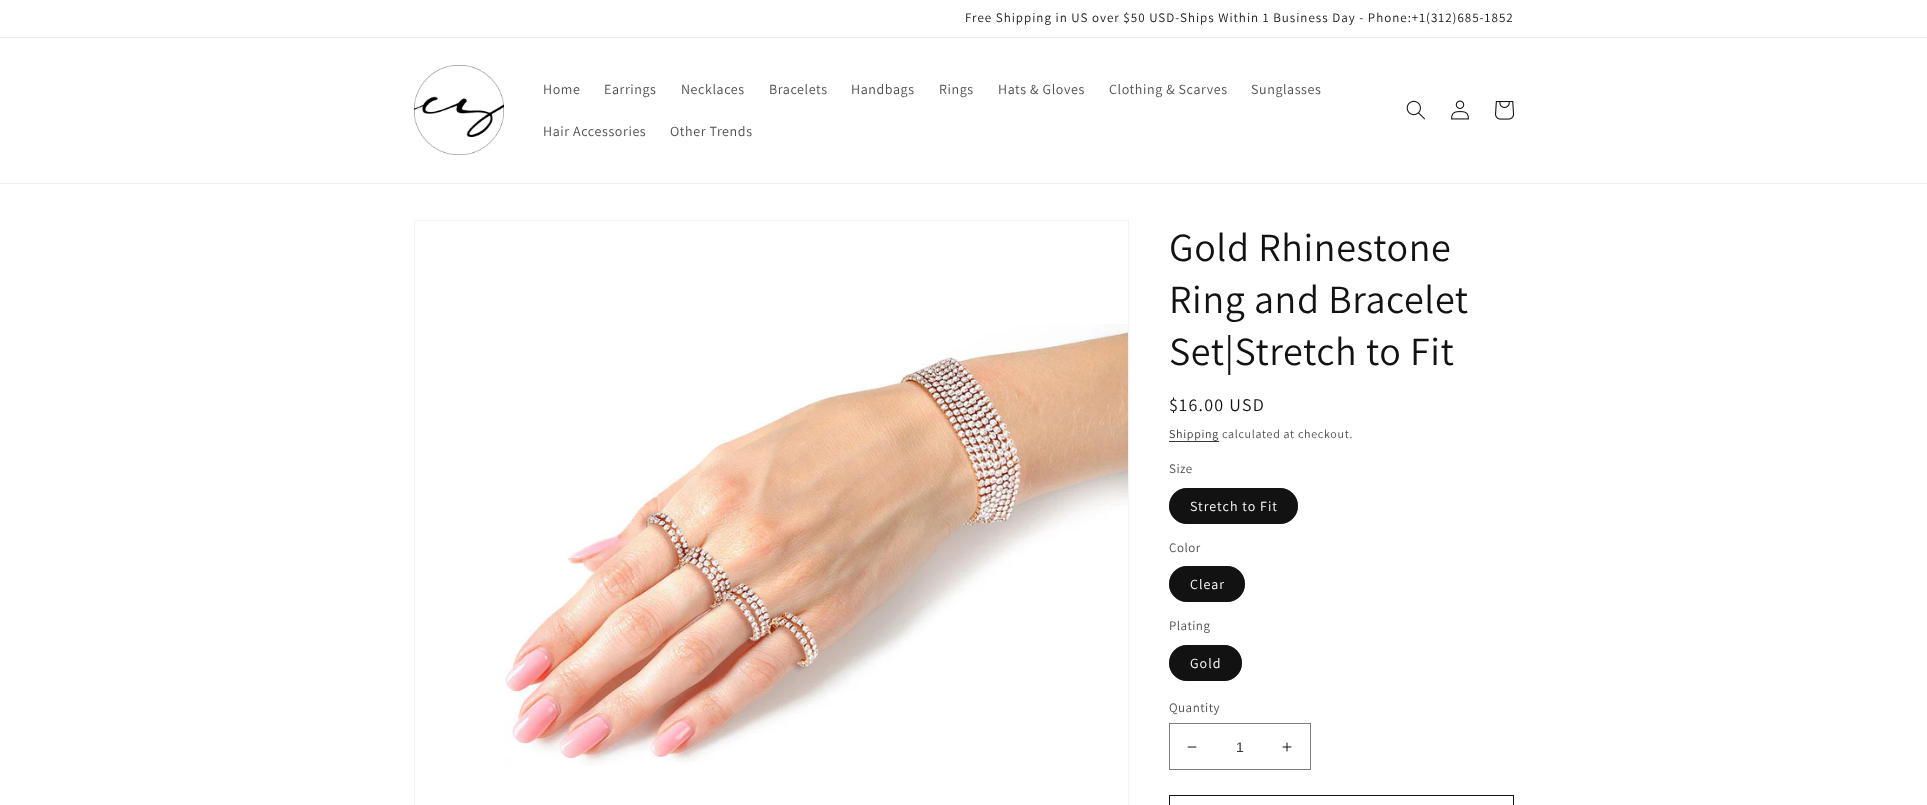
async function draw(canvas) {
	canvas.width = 1927;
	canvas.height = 805;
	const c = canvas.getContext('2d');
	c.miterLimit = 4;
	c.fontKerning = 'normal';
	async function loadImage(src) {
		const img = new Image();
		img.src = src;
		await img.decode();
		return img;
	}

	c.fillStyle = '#fff';
	c.fillRect(0, 0, 1927, 805);
	c.fillStyle = '#ececec';
	c.fillRect(0, 37, 1927, 1);
	c.letterSpacing = '1px';
	c.font = '13px Assistant';
	c.fillStyle = '#121212';
	c.fillText('Free Shipping in US over $50 USD-Ships Within 1 Business Day - Phone:+1(312)685-1852', 965, 22);
	c.fillStyle = '#ececec';
	c.fillRect(0, 183, 1927, 1);
	c.drawImage(await loadImage('img1.png'), 414, 65, 90, 90);
	c.letterSpacing = '0.6px';
	c.font = '14px Assistant';
	c.fillStyle = '#4d4d4d';
	for (const [text, x, y] of [
		['Home', 543, 94],
		['Earrings', 604, 94],
		['Necklaces', 681, 94],
		['Bracelets', 769, 94],
		['Handbags', 851, 94],
		['Rings', 939, 94],
		['Hats & Gloves', 998, 94],
		['Clothing & Scarves', 1109, 94],
		['Sunglasses', 1251, 94],
		['Hair Accessories', 543, 136],
		['Other Trends', 670, 136],
	]) {
		c.fillText(text, x, y);
	}
	c.drawImage(await loadImage('img2.png'), 1406, 100, 19, 20);
	c.drawImage(await loadImage('img3.png'), 1451, 100, 18, 20);
	c.drawImage(await loadImage('img4.png'), 1495, 101, 20, 19);
	c.strokeStyle = '#f3f3f3';
	c.strokeRect(414.5, 220.5, 714, 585);
	c.drawImage(await loadImage('img5.png'), 504, 324, 624, 442);
	c.font = '40px Assistant';
	c.fillStyle = '#121212';
	for (const [text, x, y] of [
		['Gold Rhinestone', 1169, 261],
		['Ring and Bracelet', 1169, 313],
		['Set|Stretch to Fit', 1169, 365],
	]) {
		c.fillText(text, x, y);
	}
	c.letterSpacing = '1.25px';
	c.font = '18px Assistant';
	c.fillText('$16.00 USD', 1169, 411);
	c.letterSpacing = '0.7px';
	c.font = '12px Assistant';
	c.fillStyle = '#363636';
	c.fillText('Shipping', 1169, 438);
	c.fillRect(1169, 441, 50, 1);
	c.fillStyle = '#4d4d4d';
	c.fillText('calculated at checkout.', 1222, 438);
	c.letterSpacing = '0.5px';
	c.font = '13px Assistant';
	c.fillText('Size', 1169, 473);
	c.fillStyle = '#121212';
	c.beginPath();
	c.roundRect(1169, 488, 129, 36, 18);
	c.fill();
	c.beginPath();
	c.roundRect(1169.5, 488.5, 128, 35, 17.5);
	c.strokeStyle = '#1212128c';
	c.stroke();
	c.letterSpacing = '1px';
	c.font = '14px Assistant';
	c.fillStyle = '#fff';
	c.fillText('Stretch to Fit', 1190, 511);
	c.letterSpacing = '0.5px';
	c.font = '13px Assistant';
	c.fillStyle = '#4d4d4d';
	c.fillText('Color', 1169, 552);
	c.fillStyle = '#121212';
	c.beginPath();
	c.roundRect(1169, 566, 76, 36, 18);
	c.fill();
	c.beginPath();
	c.roundRect(1169.5, 566.5, 75, 35, 17.5);
	c.stroke();
	c.letterSpacing = '1px';
	c.font = '14px Assistant';
	c.fillStyle = '#fff';
	c.fillText('Clear', 1190, 589);
	c.letterSpacing = '0.5px';
	c.font = '13px Assistant';
	c.fillStyle = '#4d4d4d';
	c.fillText('Plating', 1169, 630);
	c.fillStyle = '#121212';
	c.beginPath();
	c.roundRect(1169, 645, 73, 36, 18);
	c.fill();
	c.beginPath();
	c.roundRect(1169.5, 645.5, 72, 35, 17.5);
	c.stroke();
	c.letterSpacing = '1px';
	c.font = '14px Assistant';
	c.fillStyle = '#fff';
	c.fillText('Gold', 1190, 668);
	c.letterSpacing = '0.5px';
	c.font = '13px Assistant';
	c.fillStyle = '#4d4d4d';
	c.fillText('Quantity', 1169, 712);
	c.drawImage(await loadImage('img6.png'), 1187, 746, 10, 2);
	c.drawImage(await loadImage('img7.png'), 1282, 742, 10, 10);
	c.strokeStyle = '#7d7d7d';
	c.strokeRect(1169.5, 723.5, 141, 46);
	c.letterSpacing = '0px';
	c.font = '14px Liberation Sans';
	c.fillStyle = '#363636';
	c.fillText('1', 1236, 752);
	c.strokeStyle = '#121212';
	c.strokeRect(1169.5, 795.5, 344, 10);
}

draw(document.querySelector('canvas'));
